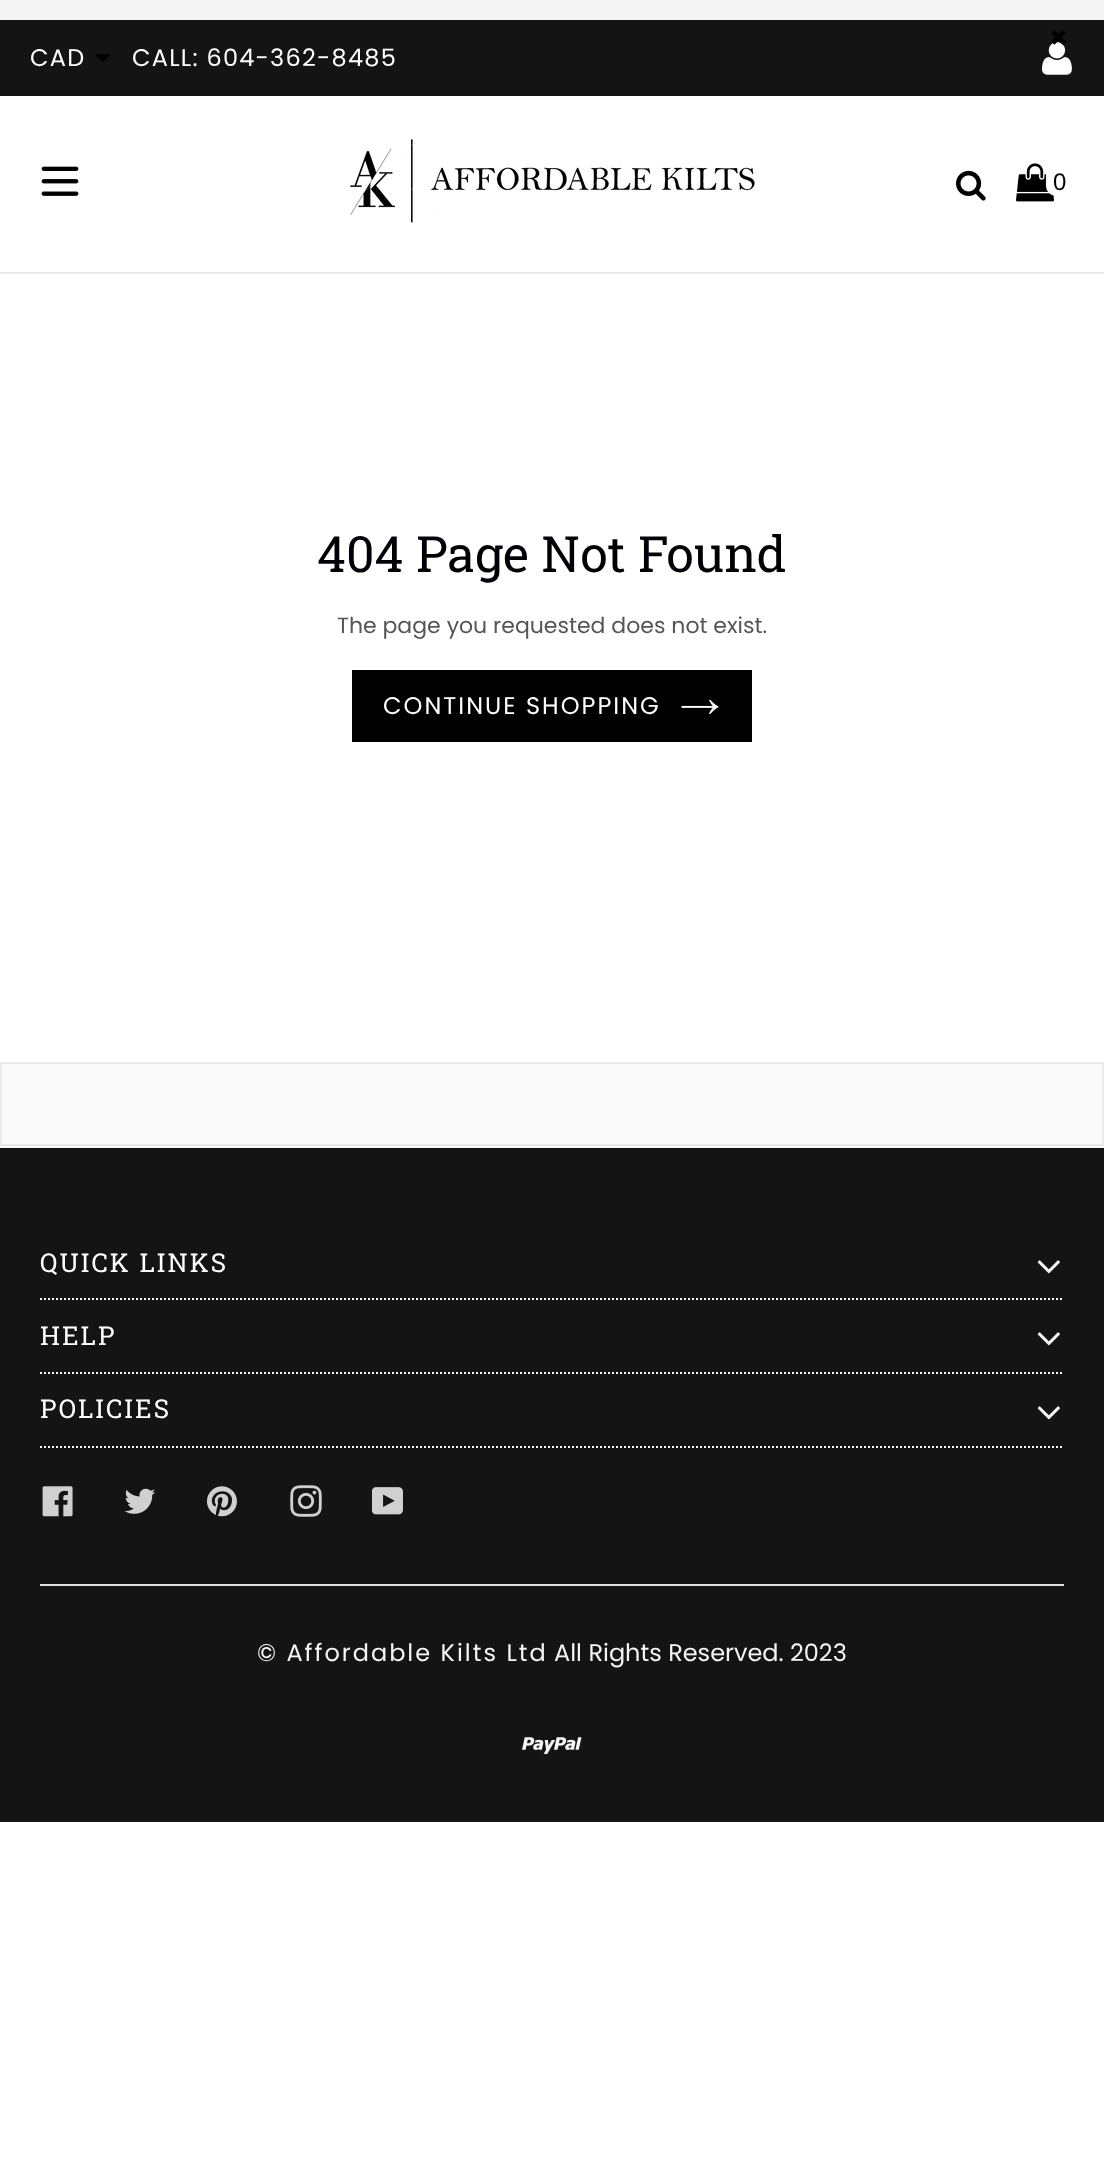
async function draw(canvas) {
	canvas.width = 1104;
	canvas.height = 2179;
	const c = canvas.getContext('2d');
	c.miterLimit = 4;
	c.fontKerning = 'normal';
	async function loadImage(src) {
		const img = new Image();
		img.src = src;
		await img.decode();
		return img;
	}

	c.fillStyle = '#fff';
	c.fillRect(0, 0, 1104, 2179);
	c.fillStyle = '#f5f5f5';
	c.fillRect(0, 0, 1104, 20);
	c.fillStyle = '#141414';
	c.fillRect(0, 20, 1104, 76);
	c.drawImage(await loadImage('img2.png'), 1042, 42, 30, 33);
	c.font = 'bold 30px Poppins';
	c.fillStyle = '#000';
	c.fillText('×', 1049, 48);
	c.drawImage(await loadImage('img1.png'), 96, 54, 14, 8);
	c.letterSpacing = '1.25px';
	c.font = '24px Poppins';
	c.fillStyle = '#fff';
	c.fillText('CAD', 30, 66);
	c.fillText('CALL: 604-362-8485', 132, 66);
	c.fillStyle = '#e8e9eb';
	c.fillRect(0, 272, 1104, 2);
	c.drawImage(await loadImage('img3.png'), 41, 166, 38, 30);
	c.drawImage(await loadImage('img4.png'), 350, 139, 405, 84);
	c.drawImage(await loadImage('img5.png'), 956, 170, 30, 31);
	c.drawImage(await loadImage('img6.png'), 1016, 163, 38, 39);
	c.fillStyle = '#fff';
	c.beginPath();
	c.roundRect(1046, 164, 20, 32, 10);
	c.fill();
	c.letterSpacing = '0px';
	c.font = '24px Liberation Sans';
	c.fillStyle = '#000';
	c.fillText('0', 1053, 190);
	c.font = '50px Roboto Slab';
	c.fillStyle = '#000106';
	c.fillText('404 Page Not Found', 317, 572);
	c.font = '22px Poppins';
	c.fillStyle = '#555';
	c.fillText('The page you requested does not exist.', 337, 633);
	c.fillStyle = '#000';
	c.fillRect(352, 670, 400, 72);
	c.letterSpacing = '2px';
	c.font = '24px Poppins';
	c.fillStyle = '#fff';
	c.fillText('CONTINUE SHOPPING', 383, 714);
	c.drawImage(await loadImage('img7.png'), 681, 699, 38, 15);
	c.fillStyle = '#f9f9f9';
	c.beginPath();
	c.rect(1, 1063, 1102, 82);
	c.fill();
	c.strokeStyle = '#e8e9eb';
	c.lineWidth = 2;
	c.stroke();
	for (const [x, y, w, h, color] of [
		[0, 1148, 1104, 674, '#141414'],
		[0, 1146, 1104, 2, '#f9f9f9'],
		[40, 1584, 1024, 2, '#e0e0e0'],
	]) {
		c.fillStyle = color;
		c.fillRect(x, y, w, h);
	}
	c.beginPath();
	c.moveTo(40, 1299);
	c.lineTo(1064, 1299);
	c.strokeStyle = '#f5f5f5';
	c.setLineDash([2, 2]);
	c.stroke();
	c.font = '26px Roboto Slab';
	c.fillStyle = '#fff';
	c.fillText('QUICK LINKS', 40, 1272);
	c.drawImage(await loadImage('img8.png'), 1037, 1260, 23, 14);
	c.beginPath();
	c.moveTo(40, 1373);
	c.lineTo(1064, 1373);
	c.stroke();
	c.fillText('HELP', 40, 1345);
	c.drawImage(await loadImage('img8.png'), 1037, 1332, 23, 14);
	c.beginPath();
	c.moveTo(40, 1447);
	c.lineTo(1064, 1447);
	c.stroke();
	c.fillText('POLICIES', 40, 1418);
	c.drawImage(await loadImage('img8.png'), 1037, 1406, 23, 14);
	c.drawImage(await loadImage('img9.png'), 42, 1486, 31, 31);
	c.drawImage(await loadImage('img10.png'), 124, 1488, 32, 26);
	c.drawImage(await loadImage('img11.png'), 206, 1486, 31, 31);
	c.drawImage(await loadImage('img12.png'), 290, 1485, 32, 32);
	c.drawImage(await loadImage('img13.png'), 372, 1487, 31, 28);
	c.font = '24px Poppins';
	c.fillStyle = '#f5f5f5';
	c.fillText('© Affordable Kilts Ltd', 257, 1661);
	c.letterSpacing = '0px';
	c.fillText('All Rights Reserved. 2023', 554, 1661);
	c.drawImage(await loadImage('img14.png'), 522, 1737, 60, 17);
}

draw(document.querySelector('canvas'));
